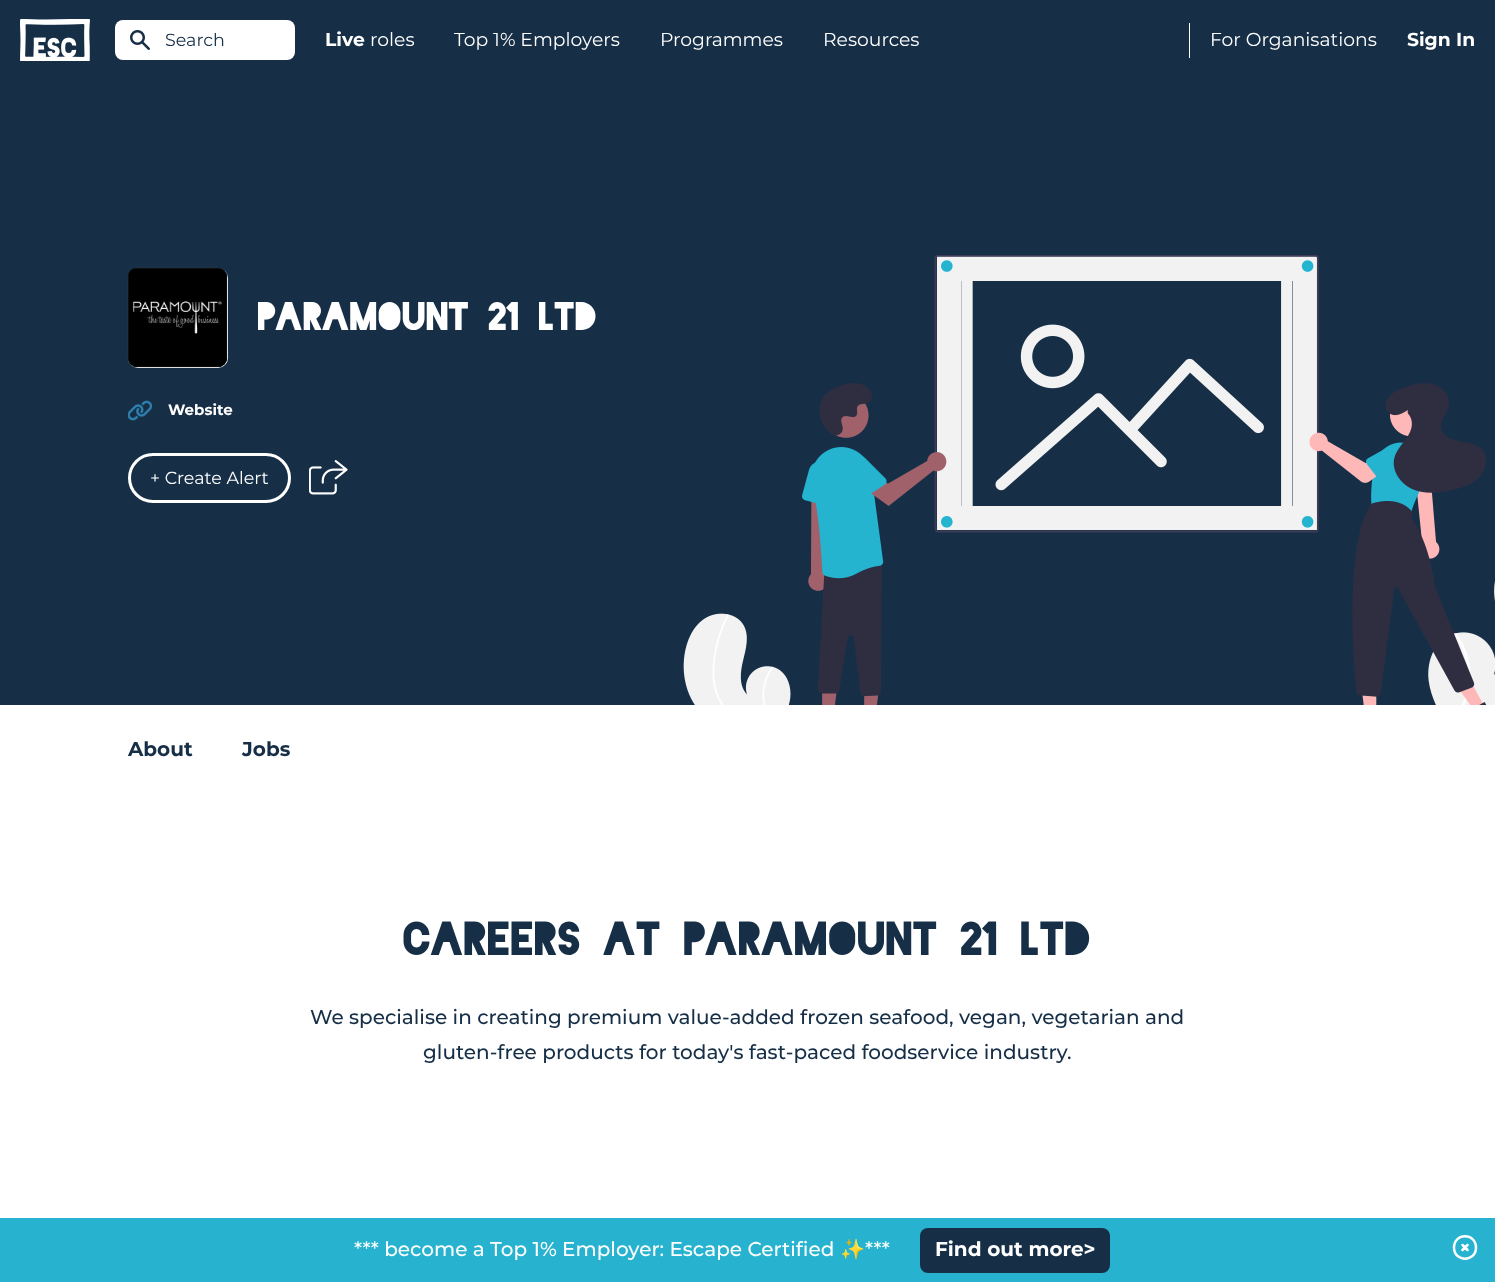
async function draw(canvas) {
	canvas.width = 1495;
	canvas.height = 1282;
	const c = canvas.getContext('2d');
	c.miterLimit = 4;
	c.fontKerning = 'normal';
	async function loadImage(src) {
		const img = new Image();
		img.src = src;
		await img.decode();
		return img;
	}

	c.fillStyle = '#fff';
	c.fillRect(0, 0, 1495, 1282);
	c.fillStyle = '#162f47';
	c.fillRect(0, 0, 1495, 705);
	c.drawImage(await loadImage('img1.png'), 20, 19, 70, 42);
	c.fillStyle = '#fff';
	c.beginPath();
	c.roundRect(115, 20, 180, 40, 8);
	c.fill();
	c.drawImage(await loadImage('img2.png'), 130, 30, 20, 20);
	c.font = '17.5px Montserrat';
	c.fillStyle = '#162f47';
	c.fillText('Search', 165, 46);
	c.font = 'bold 18.75px Montserrat';
	c.fillStyle = '#fff';
	c.fillText('Live', 325, 46);
	c.font = '18.75px Montserrat';
	for (const [text, x, y] of [
		['roles', 370, 46],
		['Top 1% Employers', 454, 46],
		['Programmes', 660, 46],
		['Resources', 823, 46],
	]) {
		c.fillText(text, x, y);
	}
	c.fillRect(1189, 23, 1, 35);
	c.fillText('For Organisations', 1210, 46);
	c.font = 'bold 18.75px Montserrat';
	c.fillText('Sign In', 1407, 46);
	c.fillStyle = '#f7f7f7';
	c.beginPath();
	c.roundRect(128, 268, 100, 100, 10);
	c.fill();
	c.drawImage(await loadImage('img3.png'), 127, 267, 101, 101);
	c.font = '900 37.5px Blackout';
	c.fillStyle = '#fff';
	c.fillText('Paramount 21 Ltd', 258, 330);
	c.drawImage(await loadImage('img4.png'), 128, 400, 25, 21);
	c.font = 'bold 15px Montserrat';
	c.fillText('Website', 168, 415);
	c.beginPath();
	c.roundRect(129.5, 454.5, 160, 47, 23.5);
	c.strokeStyle = '#fff';
	c.lineWidth = 3;
	c.stroke();
	c.font = '17.5px Montserrat';
	c.fillText('+ Create Alert', 150, 484);
	c.drawImage(await loadImage('img5.png'), 309, 460, 39, 35);
	c.drawImage(await loadImage('img6.png'), 683, 255, 812, 450);
	c.fillStyle = '#162f47';
	c.fillRect(961, 281, 332, 225);
	c.drawImage(await loadImage('img7.png'), 961, 281, 332, 225);
	c.font = 'bold 20px Montserrat';
	c.fillText('About', 128, 756);
	c.fillText('Jobs', 242, 756);
	c.font = '900 45px Blackout';
	c.fillText('Careers at Paramount 21 Ltd', 404, 955);
	c.font = '500 20px Montserrat';
	c.fillText('We specialise in creating premium value-added frozen seafood, vegan, vegetarian and', 310, 1024);
	c.fillText('gluten-free products for today\'s fast-paced foodservice industry.', 423, 1059);
	c.fillStyle = '#27b3cf';
	c.fillRect(0, 1218, 1495, 64);
	c.fillStyle = '#fff';
	c.fillText('*** become a Top 1% Employer: Escape Certified', 354, 1256);
	c.font = '20px Noto Color Emoji';
	c.fillText('✨', 840, 1256);
	c.font = '500 20px Montserrat';
	c.fillText('***', 865, 1256);
	c.fillStyle = '#162f47';
	c.beginPath();
	c.roundRect(920, 1228, 190, 45, 8);
	c.fill();
	c.font = 'bold 20px Montserrat';
	c.fillStyle = '#fff';
	c.fillText('Find out more>', 935, 1256);
	c.beginPath();
	c.moveTo(1462.5, 1250);
	c.lineTo(1465, 1247.5);
	c.moveTo(1465, 1247.5);
	c.lineTo(1467.5, 1245);
	c.moveTo(1465, 1247.5);
	c.lineTo(1462.5, 1245);
	c.moveTo(1465, 1247.5);
	c.lineTo(1467.5, 1250);
	c.moveTo(1476, 1247.5);
	c.bezierCurveTo(1476, 1262.5, 1454, 1262.5, 1454, 1247.5);
	c.bezierCurveTo(1454, 1232.5, 1476, 1232.5, 1476, 1247.5);
	c.closePath();
	c.lineWidth = 2.5;
	c.lineCap = 'round';
	c.lineJoin = 'round';
	c.stroke();
}

draw(document.querySelector('canvas'));
